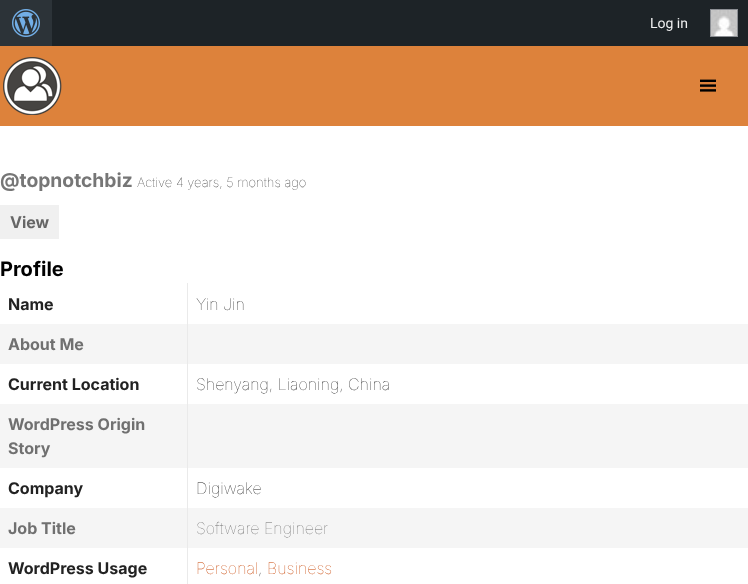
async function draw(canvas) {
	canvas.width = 748;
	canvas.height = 584;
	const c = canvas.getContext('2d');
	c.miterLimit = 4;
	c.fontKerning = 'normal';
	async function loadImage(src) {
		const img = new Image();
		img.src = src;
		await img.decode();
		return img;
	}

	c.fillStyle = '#fff';
	c.fillRect(0, 0, 748, 584);
	c.fillStyle = '#1d2327';
	c.fillRect(52, 0, 696, 46);
	c.fillStyle = '#2c3338';
	c.fillRect(0, 0, 52, 46);
	c.drawImage(await loadImage('img1.png'), 12, 9, 28, 28);
	c.font = '14px Roboto';
	c.fillStyle = '#f0f0f1';
	c.fillText('Log in', 650, 28);
	c.strokeStyle = '#8c8f94';
	c.strokeRect(710.5, 9.5, 27, 27);
	c.drawImage(await loadImage('img2.png'), 711, 10, 26, 26);
	c.fillStyle = '#dd823b';
	c.fillRect(0, 46, 748, 80);
	c.drawImage(await loadImage('img3.png'), 3, 57, 59, 58);
	c.drawImage(await loadImage('img4.png'), 700, 79, 16, 13);
	c.font = 'bold 19.25px Inter';
	c.fillStyle = '#767676';
	c.fillText('@topnotchbiz', 0, 187);
	c.font = '100 13px Inter';
	c.fillStyle = '#222';
	c.fillText('Active 4 years, 5 months ago', 137, 187);
	c.fillStyle = '#f0f0f0';
	c.fillRect(0, 205, 59, 34);
	c.font = 'bold 16px Inter';
	c.fillStyle = '#666';
	c.fillText('View', 10, 228);
	c.font = 'bold 20px Inter';
	c.fillStyle = '#000';
	c.fillText('Profile', 0, 276);
	c.font = 'bold 16px Inter';
	c.fillStyle = '#222';
	c.fillText('Name', 8, 310);
	c.font = '100 16px Inter';
	c.fillText('Yin Jin', 196, 310);
	c.fillStyle = '#f5f5f5';
	c.fillRect(0, 324, 187, 40);
	c.font = 'bold 16px Inter';
	c.fillStyle = '#707070';
	c.fillText('About Me', 8, 350);
	c.fillStyle = '#f5f5f5';
	c.fillRect(188, 324, 560, 40);
	c.fillStyle = '#222';
	c.fillText('Current Location', 8, 390);
	c.font = '100 16px Inter';
	c.fillText('Shenyang, Liaoning, China', 196, 390);
	c.fillStyle = '#f5f5f5';
	c.fillRect(0, 404, 187, 64);
	c.font = 'bold 16px Inter';
	c.fillStyle = '#707070';
	c.fillText('WordPress Origin', 8, 430);
	c.fillText('Story', 8, 454);
	c.fillStyle = '#f5f5f5';
	c.fillRect(188, 404, 560, 64);
	c.fillStyle = '#222';
	c.fillText('Company', 8, 494);
	c.font = '100 16px Inter';
	c.fillText('Digiwake', 196, 494);
	c.fillStyle = '#f5f5f5';
	c.fillRect(0, 508, 187, 40);
	c.font = 'bold 16px Inter';
	c.fillStyle = '#707070';
	c.fillText('Job Title', 8, 534);
	c.fillStyle = '#f5f5f5';
	c.fillRect(188, 508, 560, 40);
	c.font = '100 16px Inter';
	c.fillStyle = '#707070';
	c.fillText('Software Engineer', 196, 534);
	c.fillStyle = '#eaeaea';
	c.fillRect(187, 283, 1, 301);
	c.font = 'bold 16px Inter';
	c.fillStyle = '#222';
	c.fillText('WordPress Usage', 8, 574);
	c.font = '100 16px Inter';
	c.fillStyle = '#c74200';
	c.fillText('Personal', 196, 574);
	c.fillStyle = '#222';
	c.fillText(',', 258, 574);
	c.fillStyle = '#c74200';
	c.fillText('Business', 267, 574);
}

draw(document.querySelector('canvas'));
